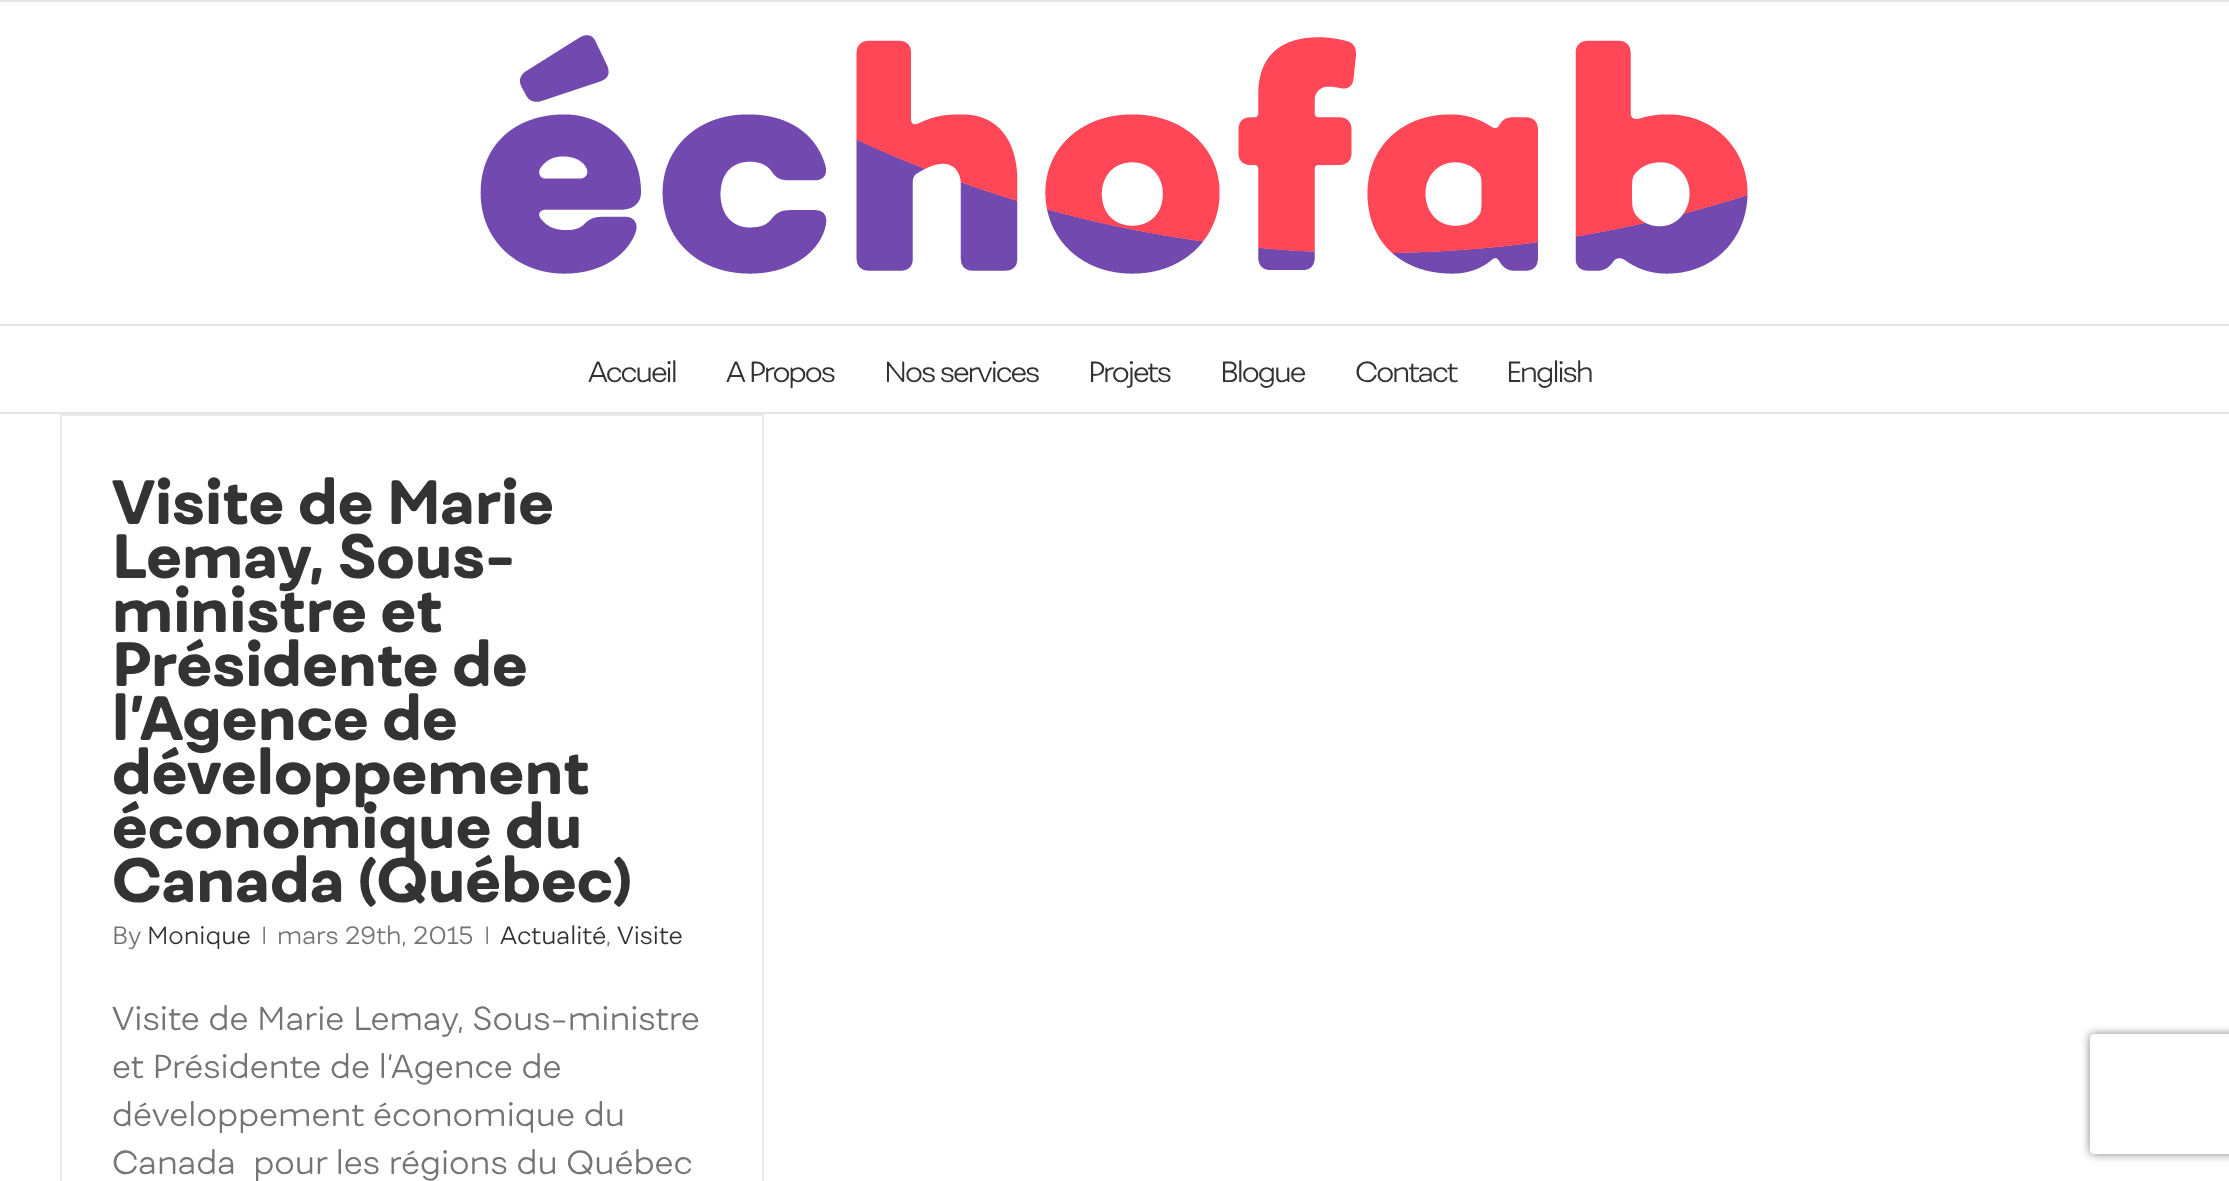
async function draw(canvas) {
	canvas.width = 2229;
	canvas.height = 1181;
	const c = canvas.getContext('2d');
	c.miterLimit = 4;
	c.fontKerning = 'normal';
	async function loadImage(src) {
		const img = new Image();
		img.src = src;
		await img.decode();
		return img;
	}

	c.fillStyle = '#fff';
	c.fillRect(0, 0, 2229, 1181);
	c.fillStyle = '#e5e5e5';
	c.fillRect(0, 0, 2229, 2);
	c.fillRect(0, 324, 2229, 2);
	c.drawImage(await loadImage('img1.png'), 480, 35, 1268, 239);
	c.fillRect(0, 412, 2229, 2);
	c.letterSpacing = '-2px';
	c.font = '300 28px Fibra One';
	c.fillStyle = '#333';
	for (const [text, x, y] of [
		['Accueil', 588, 382],
		['A Propos', 726, 382],
		['Nos services', 884, 382],
		['Projets', 1088, 382],
		['Blogue', 1220, 382],
		['Contact', 1355, 382],
		['English', 1506, 382],
	]) {
		c.fillText(text, x, y);
	}
	for (const [x, y, w, h, color] of [
		[60, 414, 704, 2, '#ebeaea'],
		[762, 414, 2, 767, '#ebeaea'],
		[60, 414, 2, 767, '#ebeaea'],
	]) {
		c.fillStyle = color;
		c.fillRect(x, y, w, h);
	}
	c.letterSpacing = '0px';
	c.font = '800 60px Fibra One';
	c.fillStyle = '#333';
	for (const [text, x, y] of [
		['Visite de Marie', 112, 524],
		['Lemay, Sous-', 112, 578],
		['ministre et', 112, 632],
		['Présidente de', 112, 686],
		['l’Agence de', 112, 740],
		['développement', 112, 794],
		['économique du', 112, 848],
		['Canada (Québec)', 112, 902],
	]) {
		c.fillText(text, x, y);
	}
	c.font = '300 24px Fibra One';
	c.fillStyle = '#747474';
	c.fillText('By', 112, 944);
	c.fillStyle = '#333';
	c.fillText('Monique', 147, 944);
	c.fillStyle = '#747474';
	for (const [text, x, y] of [
		['|', 261, 944],
		['mars 29th, 2015', 277, 944],
		['|', 484, 944],
	]) {
		c.fillText(text, x, y);
	}
	c.fillStyle = '#333';
	c.fillText('Actualité', 500, 944);
	c.fillStyle = '#747474';
	c.fillText(',', 606, 944);
	c.fillStyle = '#333';
	c.fillText('Visite', 617, 944);
	c.font = '300 32px Fibra One';
	c.fillStyle = '#747474';
	for (const [text, x, y] of [
		['Visite de Marie Lemay, Sous-ministre', 112, 1030],
		['et Présidente de l’Agence de', 112, 1078],
		['développement économique du', 112, 1126],
		['Canada  pour les régions du Québec', 112, 1174],
	]) {
		c.fillText(text, x, y);
	}
	c.save();
	c.beginPath();
	c.moveTo(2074, 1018);
	c.lineTo(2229, 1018);
	c.lineTo(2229, 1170);
	c.lineTo(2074, 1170);
	c.closePath();
	c.moveTo(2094, 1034);
	c.lineTo(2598, 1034);
	c.bezierCurveTo(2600, 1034, 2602, 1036, 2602, 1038);
	c.lineTo(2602, 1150);
	c.bezierCurveTo(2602, 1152, 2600, 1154, 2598, 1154);
	c.lineTo(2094, 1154);
	c.bezierCurveTo(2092, 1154, 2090, 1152, 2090, 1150);
	c.lineTo(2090, 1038);
	c.bezierCurveTo(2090, 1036, 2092, 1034, 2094, 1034);
	c.closePath();
	c.clip('evenodd');
	c.fillStyle = '#808080';
	c.filter = 'blur(5px)';
	c.beginPath();
	c.roundRect(2090, 1034, 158, 120, 4);
	c.fill();
	c.filter = 'none';
	c.restore();
}

draw(document.querySelector('canvas'));
